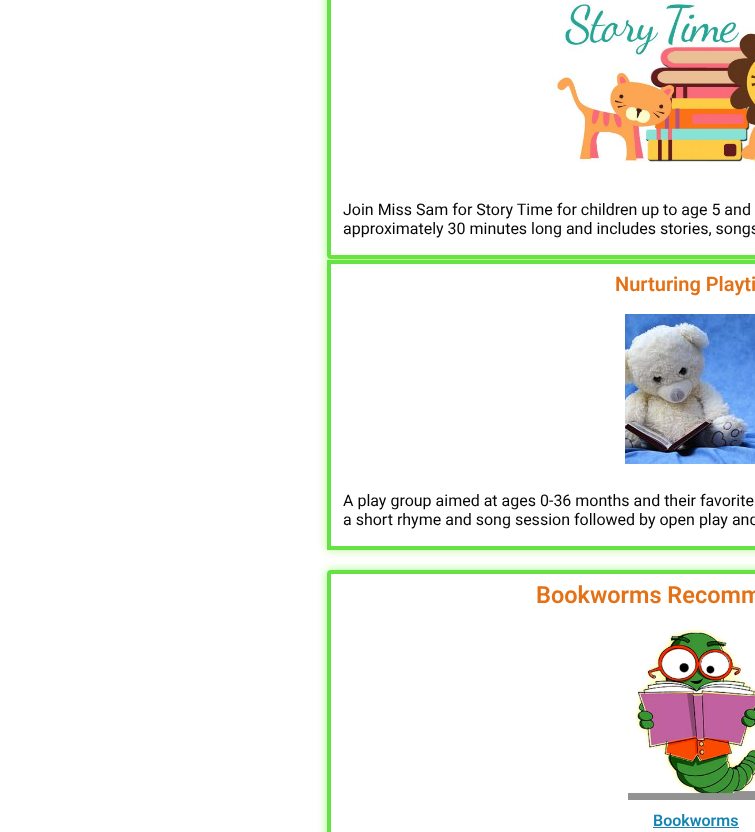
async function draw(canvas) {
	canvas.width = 755;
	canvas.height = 832;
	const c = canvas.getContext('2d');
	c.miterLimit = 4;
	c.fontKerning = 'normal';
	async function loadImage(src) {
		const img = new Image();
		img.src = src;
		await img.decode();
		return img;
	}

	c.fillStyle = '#fff';
	c.fillRect(0, 0, 755, 832);
	c.save();
	c.beginPath();
	c.moveTo(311, 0);
	c.lineTo(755, 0);
	c.lineTo(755, 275);
	c.lineTo(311, 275);
	c.closePath();
	c.moveTo(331, -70);
	c.lineTo(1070, -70);
	c.bezierCurveTo(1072, -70, 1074, -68, 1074, -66);
	c.lineTo(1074, 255);
	c.bezierCurveTo(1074, 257, 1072, 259, 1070, 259);
	c.lineTo(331, 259);
	c.bezierCurveTo(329, 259, 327, 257, 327, 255);
	c.lineTo(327, -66);
	c.bezierCurveTo(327, -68, 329, -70, 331, -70);
	c.closePath();
	c.clip('evenodd');
	c.fillStyle = '#4aff0080';
	c.filter = 'blur(5px)';
	c.beginPath();
	c.roundRect(327, -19, 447, 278, 4);
	c.fill();
	c.filter = 'none';
	c.restore();
	c.beginPath();
	c.roundRect(329, -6, 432, 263, 2);
	c.strokeStyle = '#65e247';
	c.lineWidth = 4;
	c.stroke();
	c.drawImage(await loadImage('img1.png'), 551, 1, 204, 170);
	c.font = '16px Roboto';
	c.fillStyle = '#060606';
	c.fillText('Join Miss Sam for Story Time for children up to age 5 and', 343, 215);
	c.fillText('approximately 30 minutes long and includes stories, songs', 343, 234);
	c.save();
	c.beginPath();
	c.moveTo(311, 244);
	c.lineTo(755, 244);
	c.lineTo(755, 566);
	c.lineTo(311, 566);
	c.closePath();
	c.moveTo(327, 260);
	c.lineTo(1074, 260);
	c.lineTo(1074, 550);
	c.lineTo(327, 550);
	c.closePath();
	c.clip('evenodd');
	c.fillStyle = '#71f40780';
	c.filter = 'blur(5px)';
	c.beginPath();
	c.rect(327, 260, 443, 290);
	c.fill();
	c.filter = 'none';
	c.restore();
	c.strokeRect(329, 262, 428, 286);
	c.font = '600 20px Roboto';
	c.fillStyle = '#e47115';
	c.fillText('Nurturing Playti', 615, 291);
	c.drawImage(await loadImage('img2.png'), 625, 314, 130, 150);
	c.font = '16px Roboto';
	c.fillStyle = '#060606';
	c.fillText('A play group aimed at ages 0-36 months and their favorite', 343, 506);
	c.fillText('a short rhyme and song session followed by open play and', 343, 525);
	c.save();
	c.beginPath();
	c.moveTo(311, 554);
	c.lineTo(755, 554);
	c.lineTo(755, 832);
	c.lineTo(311, 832);
	c.closePath();
	c.moveTo(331, 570);
	c.lineTo(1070, 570);
	c.bezierCurveTo(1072, 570, 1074, 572, 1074, 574);
	c.lineTo(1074, 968);
	c.bezierCurveTo(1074, 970, 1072, 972, 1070, 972);
	c.lineTo(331, 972);
	c.bezierCurveTo(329, 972, 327, 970, 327, 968);
	c.lineTo(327, 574);
	c.bezierCurveTo(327, 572, 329, 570, 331, 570);
	c.closePath();
	c.clip('evenodd');
	c.fillStyle = '#4aff0080';
	c.filter = 'blur(5px)';
	c.beginPath();
	c.roundRect(327, 570, 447, 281, 4);
	c.fill();
	c.filter = 'none';
	c.restore();
	c.beginPath();
	c.roundRect(329, 572, 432, 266, 2);
	c.stroke();
	c.font = '600 23.5px Roboto';
	c.fillStyle = '#e47115';
	c.fillText('Bookworms Recomm', 536, 603);
	c.drawImage(await loadImage('img3.png'), 628, 629, 127, 171);
	c.font = '600 16px Roboto';
	c.fillStyle = '#1684b2';
	c.fillText('Bookworms', 653, 826);
	c.fillRect(653, 827, 86, 1);
}

draw(document.querySelector('canvas'));
